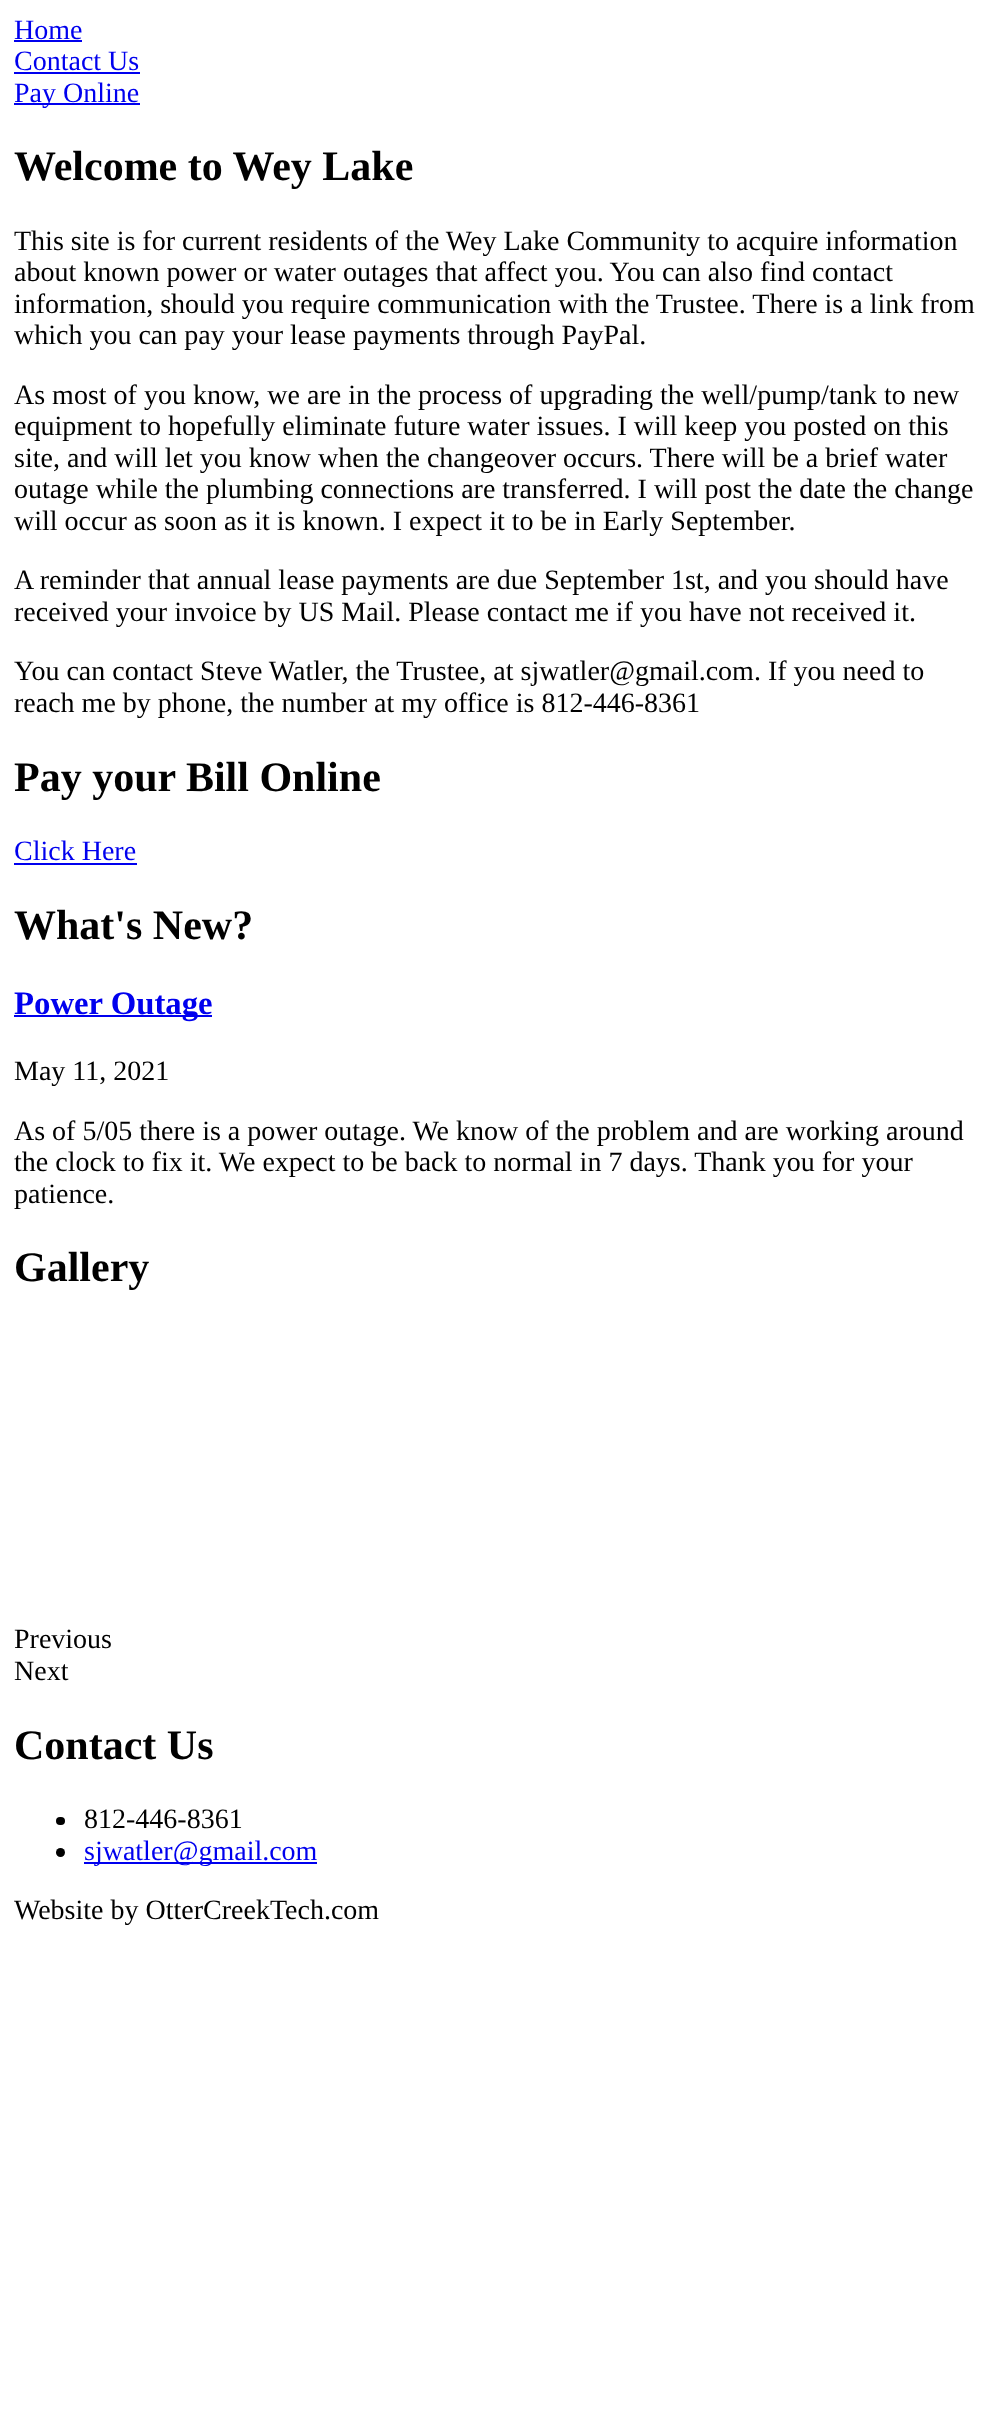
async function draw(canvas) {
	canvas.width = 996;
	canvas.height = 2425;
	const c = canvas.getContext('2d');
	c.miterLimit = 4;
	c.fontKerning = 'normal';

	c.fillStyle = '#fff';
	c.fillRect(0, 0, 996, 2425);
	c.font = '28px Liberation Serif';
	c.fillStyle = '#00e';
	c.fillText('Home', 14, 39);
	c.fillRect(14, 40, 68, 2);
	c.fillText('Contact Us', 14, 70);
	c.fillRect(14, 72, 126, 2);
	c.fillRect(14, 103, 126, 2);
	c.fillText('Pay Online', 14, 102);
	c.font = 'bold 42px Liberation Serif';
	c.fillStyle = '#000';
	c.fillText('Welcome to Wey Lake', 14, 180);
	c.font = '28px Liberation Serif';
	for (const [text, x, y] of [
		['This site is for current residents of the Wey Lake Community to acquire information', 14, 250],
		['about known power or water outages that affect you. You can also find contact', 14, 281],
		['information, should you require communication with the Trustee. There is a link from', 14, 313],
		['which you can pay your lease payments through PayPal.', 14, 344],
		['As most of you know, we are in the process of upgrading the well/pump/tank to new', 14, 404],
		['equipment to hopefully eliminate future water issues. I will keep you posted on this', 14, 435],
		['site, and will let you know when the changeover occurs. There will be a brief water', 14, 467],
		['outage while the plumbing connections are transferred. I will post the date the change', 14, 498],
		['will occur as soon as it is known. I expect it to be in Early September.', 14, 530],
		['A reminder that annual lease payments are due September 1st, and you should have', 14, 589],
		['received your invoice by US Mail. Please contact me if you have not received it.', 14, 621],
		['You can contact Steve Watler, the Trustee, at sjwatler@gmail.com. If you need to', 14, 680],
		['reach me by phone, the number at my office is 812-446-8361', 14, 712],
	]) {
		c.fillText(text, x, y);
	}
	c.font = 'bold 42px Liberation Serif';
	c.fillText('Pay your Bill Online', 14, 791);
	c.font = '28px Liberation Serif';
	c.fillStyle = '#00e';
	c.fillText('Click Here', 14, 860);
	c.fillRect(14, 863, 123, 2);
	c.font = 'bold 42px Liberation Serif';
	c.fillStyle = '#000';
	c.fillText('What\'s New?', 14, 939);
	c.fillStyle = '#00e';
	c.fillRect(14, 1015, 198, 2);
	c.font = 'bold 32.75px Liberation Serif';
	c.fillText('Power Outage', 14, 1014);
	c.font = '28px Liberation Serif';
	c.fillStyle = '#000';
	for (const [text, x, y] of [
		['May 11, 2021', 14, 1080],
		['As of 5/05 there is a power outage. We know of the problem and are working around', 14, 1140],
		['the clock to fix it. We expect to be back to normal in 7 days. Thank you for your', 14, 1171],
		['patience.', 14, 1203],
	]) {
		c.fillText(text, x, y);
	}
	c.font = 'bold 42px Liberation Serif';
	c.fillText('Gallery', 14, 1281);
	c.font = '28px Liberation Serif';
	c.fillText('Previous', 14, 1648);
	c.fillText('Next', 14, 1680);
	c.font = 'bold 42px Liberation Serif';
	c.fillText('Contact Us', 14, 1759);
	c.beginPath();
	c.roundRect(56, 1817, 9, 8, 4);
	c.fill();
	c.font = '28px Liberation Serif';
	c.fillText('812-446-8361', 84, 1828);
	c.beginPath();
	c.arc(60.5, 1852.5, 4.5, 0, 2 * Math.PI);
	c.fill();
	c.fillStyle = '#00e';
	c.fillRect(84, 1862, 233, 2);
	c.fillText('sjwatler@gmail.com', 84, 1860);
	c.fillStyle = '#000';
	c.fillText('Website by OtterCreekTech.com', 14, 1919);
}

draw(document.querySelector('canvas'));
